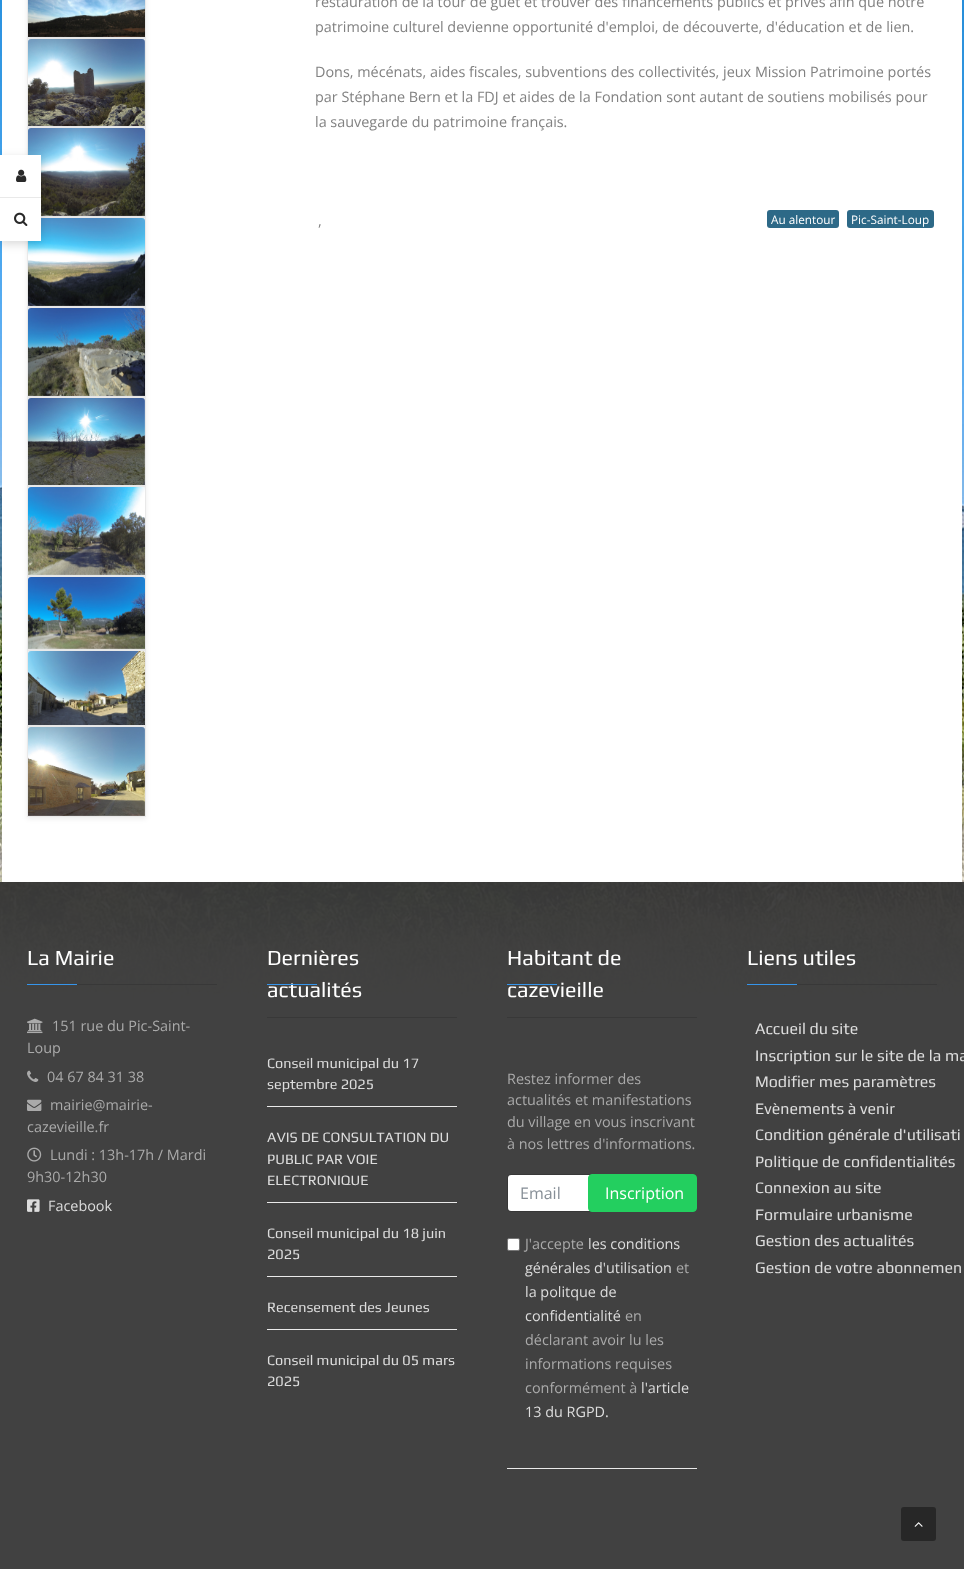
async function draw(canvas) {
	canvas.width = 964;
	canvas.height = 1569;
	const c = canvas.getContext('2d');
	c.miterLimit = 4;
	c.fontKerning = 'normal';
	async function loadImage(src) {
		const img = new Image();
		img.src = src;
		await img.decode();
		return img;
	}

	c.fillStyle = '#fff';
	c.fillRect(0, 0, 964, 1569);
	c.drawImage(await loadImage('img1.png'), 0, 0, 964, 1008);
	c.fillRect(2, 0, 960, 882);
	c.fillStyle = '#00000012';
	c.filter = 'blur(2.5px)';
	c.beginPath();
	c.rect(27, -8, 119, 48);
	c.fill();
	c.filter = 'none';
	c.strokeStyle = '#e9e9e9';
	c.strokeRect(27.5, -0.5, 118, 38);
	c.filter = 'blur(2.5px)';
	c.beginPath();
	c.rect(27, 40, 119, 89);
	c.fill();
	c.filter = 'none';
	c.strokeRect(27.5, 38.5, 118, 88);
	c.filter = 'blur(2.5px)';
	c.beginPath();
	c.rect(27, 129, 119, 90);
	c.fill();
	c.filter = 'none';
	c.strokeRect(27.5, 127.5, 118, 89);
	c.filter = 'blur(2.5px)';
	c.beginPath();
	c.rect(27, 219, 119, 90);
	c.fill();
	c.filter = 'none';
	c.drawImage(await loadImage('img6.png'), 28, 128, 117, 88);
	c.strokeRect(27.5, 217.5, 118, 89);
	c.filter = 'blur(2.5px)';
	c.beginPath();
	c.rect(27, 309, 119, 90);
	c.fill();
	c.filter = 'none';
	c.drawImage(await loadImage('img7.png'), 28, 218, 117, 88);
	c.fillStyle = '#00000026';
	c.filter = 'blur(5px)';
	c.beginPath();
	c.rect(0, 158, 41, 86);
	c.fill();
	c.filter = 'none';
	c.fillStyle = '#fff';
	c.fillRect(0, 155, 41, 86);
	c.fillStyle = '#e9e9e9';
	c.fillRect(0, 197, 41, 1);
	c.drawImage(await loadImage('img2.png'), 16, 169, 11, 13);
	c.drawImage(await loadImage('img3.png'), 14, 212, 14, 14);
	c.drawImage(await loadImage('img4.png'), 28, 0, 117, 37);
	c.drawImage(await loadImage('img5.png'), 28, 39, 117, 87);
	c.strokeRect(27.5, 307.5, 118, 89);
	c.fillStyle = '#00000012';
	c.filter = 'blur(2.5px)';
	c.beginPath();
	c.rect(27, 399, 119, 89);
	c.fill();
	c.filter = 'none';
	c.drawImage(await loadImage('img8.png'), 28, 308, 117, 88);
	c.strokeRect(27.5, 397.5, 118, 88);
	c.filter = 'blur(2.5px)';
	c.beginPath();
	c.rect(27, 488, 119, 90);
	c.fill();
	c.filter = 'none';
	c.drawImage(await loadImage('img9.png'), 28, 398, 117, 87);
	c.strokeRect(27.5, 486.5, 118, 89);
	c.filter = 'blur(2.5px)';
	c.beginPath();
	c.rect(27, 578, 119, 74);
	c.fill();
	c.filter = 'none';
	c.drawImage(await loadImage('img10.png'), 28, 487, 117, 88);
	c.strokeRect(27.5, 576.5, 118, 73);
	c.filter = 'blur(2.5px)';
	c.beginPath();
	c.rect(27, 652, 119, 76);
	c.fill();
	c.filter = 'none';
	c.drawImage(await loadImage('img11.png'), 28, 577, 117, 72);
	c.strokeRect(27.5, 650.5, 118, 75);
	c.filter = 'blur(2.5px)';
	c.beginPath();
	c.rect(27, 728, 119, 91);
	c.fill();
	c.filter = 'none';
	c.drawImage(await loadImage('img12.png'), 28, 651, 117, 74);
	c.strokeRect(27.5, 726.5, 118, 90);
	c.drawImage(await loadImage('img13.png'), 28, 727, 117, 89);
	c.font = '14.4px Open Sans';
	c.fillStyle = '#818181';
	for (const [text, x, y] of [
		['restauration de la tour de guet et trouver des financements publics et privés afin que notre', 315, 7],
		['patrimoine culturel devienne opportunité d\'emploi, de découverte, d\'éducation et de lien.', 315, 32],
		['Dons, mécénats, aides fiscales, subventions des collectivités, jeux Mission Patrimoine portés', 315, 77],
		['par Stéphane Bern et la FDJ et aides de la Fondation sont autant de soutiens mobilisés pour', 315, 102],
		['la sauvegarde du patrimoine français.', 315, 127],
		[',', 318, 226],
	]) {
		c.fillText(text, x, y);
	}
	c.fillStyle = '#2d6987';
	c.beginPath();
	c.roundRect(767, 210, 72, 18, 3);
	c.fill();
	c.font = '11.75px Open Sans';
	c.fillStyle = '#fff';
	c.fillText('Au alentour', 771, 224);
	c.fillStyle = '#2d6987';
	c.beginPath();
	c.roundRect(847, 210, 87, 18, 3);
	c.fill();
	c.fillStyle = '#fff';
	c.fillText('Pic-Saint-Loup', 851, 224);
	c.fillStyle = '#2a2a2ae3';
	c.fillRect(0, 882, 964, 687);
	c.fillStyle = '#383838';
	c.fillRect(77, 984, 140, 1);
	c.font = '21.5px Play';
	c.fillStyle = '#fff';
	c.fillText('La Mairie', 27, 965);
	c.fillStyle = '#3695eb';
	c.fillRect(27, 984, 50, 1);
	c.drawImage(await loadImage('img14.png'), 27, 1018, 16, 16);
	c.font = '14.4px Open Sans';
	c.fillStyle = '#aaa';
	c.fillText('151 rue du Pic-Saint-', 52, 1031);
	c.fillText('Loup', 27, 1053);
	c.drawImage(await loadImage('img15.png'), 27, 1070, 12, 12);
	c.fillText('04 67 84 31 38', 47, 1082);
	c.drawImage(await loadImage('img16.png'), 27, 1099, 15, 12);
	c.fillText('mairie@mairie-', 50, 1110);
	c.fillText('cazevieille.fr', 27, 1132);
	c.drawImage(await loadImage('img17.png'), 27, 1147, 15, 15);
	c.fillText('Lundi : 13h-17h / Mardi', 50, 1160);
	c.fillText('9h30-12h30', 27, 1182);
	c.drawImage(await loadImage('img18.png'), 27, 1199, 13, 13);
	c.fillStyle = '#ddd';
	c.fillText('Facebook', 48, 1211);
	c.fillStyle = '#383838';
	c.fillRect(267, 1017, 190, 1);
	c.font = '21.5px Play';
	c.fillStyle = '#fff';
	c.fillText('Dernières', 267, 965);
	c.fillText('actualités', 267, 997);
	c.fillStyle = '#3695eb';
	c.fillRect(267, 984, 50, 1);
	c.font = '14.4px Play';
	c.fillStyle = '#ddd';
	c.fillText('Conseil municipal du 17', 267, 1068);
	c.fillText('septembre 2025', 267, 1089);
	c.fillStyle = '#e9e9e9';
	c.fillRect(267, 1106, 190, 1);
	c.fillStyle = '#ddd';
	for (const [text, x, y] of [
		['AVIS DE CONSULTATION DU', 267, 1142],
		['PUBLIC PAR VOIE', 267, 1164],
		['ELECTRONIQUE', 267, 1185],
	]) {
		c.fillText(text, x, y);
	}
	c.fillStyle = '#e9e9e9';
	c.fillRect(267, 1202, 190, 1);
	c.fillStyle = '#ddd';
	c.fillText('Conseil municipal du 18 juin', 267, 1238);
	c.fillText('2025', 267, 1259);
	c.fillStyle = '#e9e9e9';
	c.fillRect(267, 1276, 190, 1);
	c.fillStyle = '#ddd';
	c.fillText('Recensement des Jeunes', 267, 1312);
	c.fillStyle = '#e9e9e9';
	c.fillRect(267, 1329, 190, 1);
	c.fillStyle = '#ddd';
	c.fillText('Conseil municipal du 05 mars', 267, 1365);
	c.fillText('2025', 267, 1386);
	c.fillStyle = '#383838';
	c.fillRect(507, 1017, 190, 1);
	c.font = '21.5px Play';
	c.fillStyle = '#fff';
	c.fillText('Habitant de', 507, 965);
	c.fillText('cazevieille', 507, 997);
	c.fillStyle = '#3695eb';
	c.fillRect(507, 984, 50, 1);
	c.font = '14.4px Open Sans';
	c.fillStyle = '#aaa';
	for (const [text, x, y] of [
		['Restez informer des', 507, 1084],
		['actualités et manifestations', 507, 1105],
		['du village en vous inscrivant', 507, 1127],
		['à nos lettres d\'informations.', 507, 1149],
	]) {
		c.fillText(text, x, y);
	}
	c.fillStyle = '#fff';
	c.beginPath();
	c.roundRect(508, 1175, 188, 36, 3);
	c.fill();
	c.beginPath();
	c.roundRect(507.5, 1174.5, 189, 37, 3.5);
	c.strokeStyle = '#00000026';
	c.stroke();
	c.font = '16px Open Sans';
	c.fillStyle = '#868e96';
	c.fillText('Email', 520, 1199);
	c.fillStyle = '#23cf5f';
	c.beginPath();
	c.roundRect(588.5, 1174.5, 108, 37, 3.5);
	c.fill();
	c.strokeStyle = '#23cf5f';
	c.stroke();
	c.fillStyle = '#fff';
	c.fillText('Inscription', 605, 1199);
	c.beginPath();
	c.roundRect(507.5, 1238.5, 12, 12, 1.5);
	c.fill();
	c.strokeStyle = '#767676';
	c.stroke();
	c.font = '14.4px Open Sans';
	c.fillStyle = '#aaa';
	c.fillText('J\'accepte', 525, 1249);
	c.fillStyle = '#ddd';
	c.fillText('les conditions', 588, 1249);
	c.fillText('générales d\'utilisation', 525, 1273);
	c.fillStyle = '#aaa';
	c.fillText('et', 676, 1273);
	c.fillStyle = '#ddd';
	c.fillText('la politque de', 525, 1297);
	c.fillText('confidentialité', 525, 1321);
	c.fillStyle = '#aaa';
	for (const [text, x, y] of [
		['en', 625, 1321],
		['déclarant avoir lu les', 525, 1345],
		['informations requises', 525, 1369],
		['conformément à', 525, 1393],
	]) {
		c.fillText(text, x, y);
	}
	c.fillStyle = '#ddd';
	c.fillText('l\'article', 641, 1393);
	c.fillText('13 du RGPD.', 525, 1417);
	c.fillStyle = '#e9e9e9';
	c.fillRect(507, 1468, 190, 1);
	c.fillStyle = '#383838';
	c.fillRect(797, 984, 140, 1);
	c.font = '21.5px Play';
	c.fillStyle = '#fff';
	c.fillText('Liens utiles', 747, 965);
	c.fillStyle = '#3695eb';
	c.fillRect(747, 984, 50, 1);
	c.font = '16px Play';
	c.fillStyle = '#ddd';
	for (const [text, x, y] of [
		['Accueil du site', 755, 1034],
		['Inscription sur le site de la ma', 755, 1061],
		['Modifier mes paramètres', 755, 1087],
		['Evènements à venir', 755, 1114],
		['Condition générale d\'utilisati', 755, 1140],
		['Politique de confidentialités', 755, 1167],
		['Connexion au site', 755, 1193],
		['Formulaire urbanisme', 755, 1220],
		['Gestion des actualités', 755, 1246],
		['Gestion de votre abonnemen', 755, 1273],
	]) {
		c.fillText(text, x, y);
	}
	c.fillStyle = '#272727';
	c.beginPath();
	c.roundRect(901, 1507, 35, 34, 3);
	c.fill();
	c.drawImage(await loadImage('img19.png'), 914, 1522, 9, 5);
}

draw(document.querySelector('canvas'));
